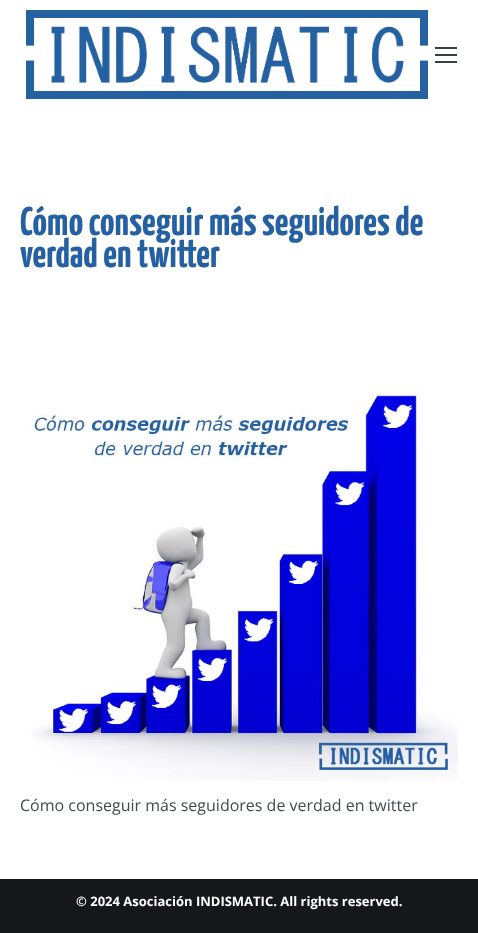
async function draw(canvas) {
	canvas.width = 478;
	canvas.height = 933;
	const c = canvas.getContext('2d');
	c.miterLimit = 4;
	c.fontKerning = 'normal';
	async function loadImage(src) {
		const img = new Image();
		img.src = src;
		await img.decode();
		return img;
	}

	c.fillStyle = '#fff';
	c.fillRect(0, 0, 478, 933);
	c.drawImage(await loadImage('img1.png'), 26, 10, 402, 89);
	for (const [x, y, w, h, color] of [
		[435, 47, 22, 2, '#3c3e45'],
		[435, 54, 22, 2, '#3c3e45'],
		[435, 61, 22, 2, '#3c3e45'],
	]) {
		c.fillStyle = color;
		c.fillRect(x, y, w, h);
	}
	c.font = 'bold 40px Yanone Kaffeesatz';
	c.fillStyle = '#2560a2';
	c.fillText('Cómo conseguir más seguidores de', 20, 235);
	c.fillText('verdad en twitter', 20, 267);
	c.drawImage(await loadImage('img2.png'), 31, 387, 427, 394);
	c.font = '16px Open Sans';
	c.fillStyle = '#434b4f';
	c.fillText('Cómo conseguir más seguidores de verdad en twitter', 20, 811);
	c.fillStyle = '#16171b';
	c.fillRect(0, 879, 478, 54);
	c.font = 'bold 13px Open Sans';
	c.fillStyle = '#fff';
	c.fillText('© 2024 Asociación INDISMATIC. All rights reserved.', 76, 906);
}

draw(document.querySelector('canvas'));
